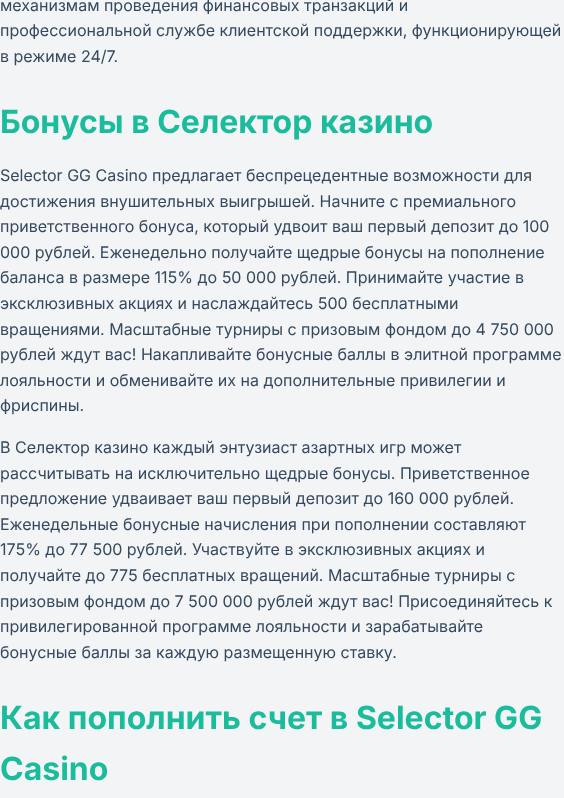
async function draw(canvas) {
	canvas.width = 564;
	canvas.height = 798;
	const c = canvas.getContext('2d');
	c.miterLimit = 4;
	c.fontKerning = 'normal';

	c.fillStyle = '#f3f4f6';
	c.fillRect(0, 0, 564, 798);
	c.font = '16px Inter';
	c.fillStyle = '#34495e';
	for (const [text, x, y] of [
		['механизмам проведения финансовых транзакций и', 0, 11],
		['профессиональной службе клиентской поддержки, функционирующей', 0, 36],
		['в режиме 24/7.', 0, 62],
	]) {
		c.fillText(text, x, y);
	}
	c.font = 'bold 32px Inter';
	c.fillStyle = '#1abc9c';
	c.fillText('Бонусы в Селектор казино', 0, 133);
	c.font = '16px Inter';
	c.fillStyle = '#34495e';
	for (const [text, x, y] of [
		['Selector GG Casino предлагает беспрецедентные возможности для', 0, 181],
		['достижения внушительных выигрышей. Начните с премиального', 0, 207],
		['приветственного бонуса, который удвоит ваш первый депозит до 100', 0, 232],
		['000 рублей. Еженедельно получайте щедрые бонусы на пополнение', 0, 258],
		['баланса в размере 115% до 50 000 рублей. Принимайте участие в', 0, 283],
		['эксклюзивных акциях и наслаждайтесь 500 бесплатными', 0, 309],
		['вращениями. Масштабные турниры с призовым фондом до 4 750 000', 0, 335],
		['рублей ждут вас! Накапливайте бонусные баллы в элитной программе', 0, 360],
		['лояльности и обменивайте их на дополнительные привилегии и', 0, 386],
		['фриспины.', 0, 411],
		['В Селектор казино каждый энтузиаст азартных игр может', 0, 453],
		['рассчитывать на исключительно щедрые бонусы. Приветственное', 0, 479],
		['предложение удваивает ваш первый депозит до 160 000 рублей.', 0, 504],
		['Еженедельные бонусные начисления при пополнении составляют', 0, 530],
		['175% до 77 500 рублей. Участвуйте в эксклюзивных акциях и', 0, 555],
		['получайте до 775 бесплатных вращений. Масштабные турниры с', 0, 581],
		['призовым фондом до 7 500 000 рублей ждут вас! Присоединяйтесь к', 0, 607],
		['привилегированной программе лояльности и зарабатывайте', 0, 632],
		['бонусные баллы за каждую размещенную ставку.', 0, 658],
	]) {
		c.fillText(text, x, y);
	}
	c.font = 'bold 32px Inter';
	c.fillStyle = '#1abc9c';
	c.fillText('Как пополнить счет в Selector GG', 0, 729);
	c.fillText('Casino', 0, 780);
}

draw(document.querySelector('canvas'));
